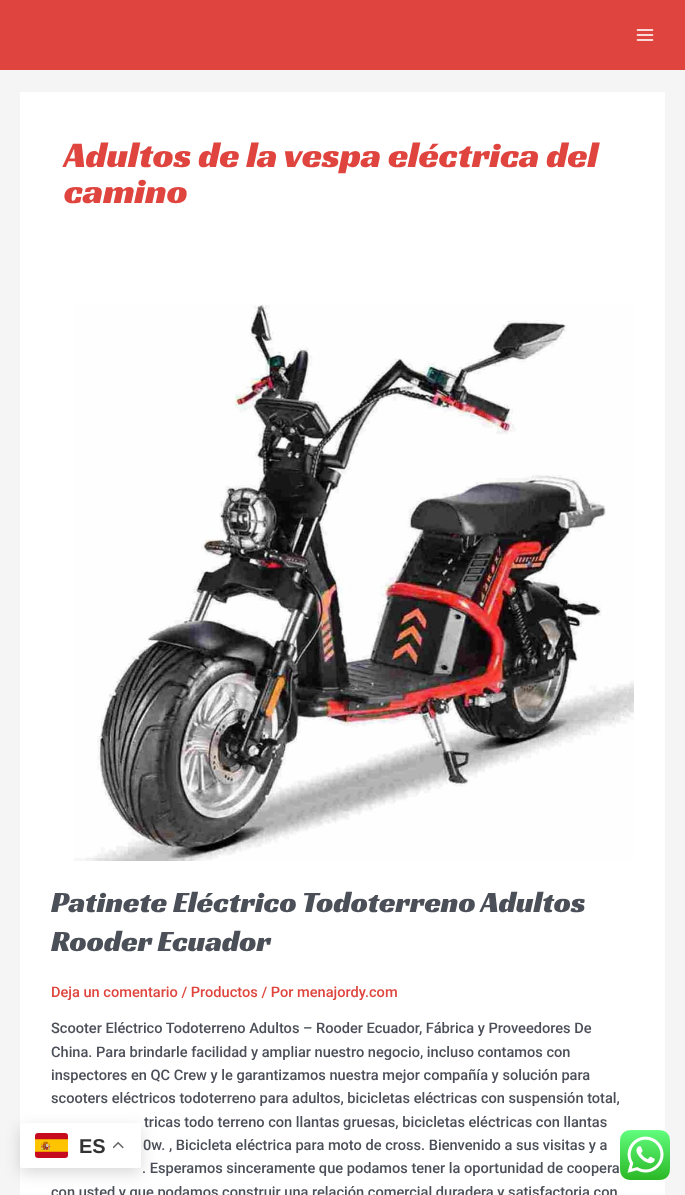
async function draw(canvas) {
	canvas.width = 685;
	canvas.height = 1195;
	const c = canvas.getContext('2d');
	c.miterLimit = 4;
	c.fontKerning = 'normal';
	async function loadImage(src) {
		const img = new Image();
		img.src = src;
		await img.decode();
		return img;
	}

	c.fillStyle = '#f5f5f5';
	c.fillRect(0, 0, 685, 1195);
	c.fillStyle = '#df453e';
	c.fillRect(0, 0, 685, 70);
	c.drawImage(await loadImage('img1.png'), 636, 29, 18, 12);
	c.fillStyle = '#fff';
	c.fillRect(20, 92, 645, 1103);
	c.font = '36.5px Racing Sans One';
	c.fillStyle = '#df453e';
	c.fillText('Adultos de la vespa eléctrica del', 64, 167);
	c.fillText('camino', 64, 203);
	c.drawImage(await loadImage('img2.png'), 74, 304, 560, 557);
	c.font = '30px Racing Sans One';
	c.fillStyle = '#4b4f58';
	c.fillText('Patinete Eléctrico Todoterreno Adultos', 51, 912);
	c.fillText('Rooder Ecuador', 51, 951);
	c.font = '500 14.6px Roboto';
	c.fillStyle = '#df453e';
	c.fillText('Deja un comentario / Productos / Por menajordy.com', 51, 997);
	c.fillStyle = '#4b4f58';
	for (const [text, x, y] of [
		['Scooter Eléctrico Todoterreno Adultos – Rooder Ecuador, Fábrica y Proveedores De', 51, 1033],
		['China. Para brindarle facilidad y ampliar nuestro negocio, incluso contamos con', 51, 1057],
		['inspectores en QC Crew y le garantizamos nuestra mejor compañía y solución para', 51, 1080],
		['scooters eléctricos todoterreno para adultos, bicicletas eléctricas con suspensión total,', 51, 1103],
		['tricas todo terreno con llantas gruesas, bicicletas eléctricas con llantas', 144, 1127],
		['0w. , Bicicleta eléctrica para moto de cross. Bienvenido a sus visitas y a', 143, 1150],
		['. Esperamos sinceramente que podamos tener la oportunidad de coopera', 142, 1173],
		['con usted y que podamos construir una relación comercial duradera y satisfactoria con', 51, 1197],
	]) {
		c.fillText(text, x, y);
	}
	c.drawImage(await loadImage('img3.png'), 620, 1130, 50, 50);
	c.fillStyle = '#00000026';
	c.filter = 'blur(7.5px)';
	c.beginPath();
	c.roundRect(20, 1128, 121, 45, 2);
	c.fill();
	c.filter = 'none';
	c.fillStyle = '#fff';
	c.beginPath();
	c.roundRect(20, 1123, 121, 45, 2);
	c.fill();
	c.drawImage(await loadImage('img4.png'), 35, 1133, 33, 25);
	c.font = 'bold 20px Liberation Sans';
	c.fillStyle = '#333';
	c.fillText('ES', 79, 1153);
	c.drawImage(await loadImage('img5.png'), 113, 1141, 11, 8);
}

draw(document.querySelector('canvas'));
